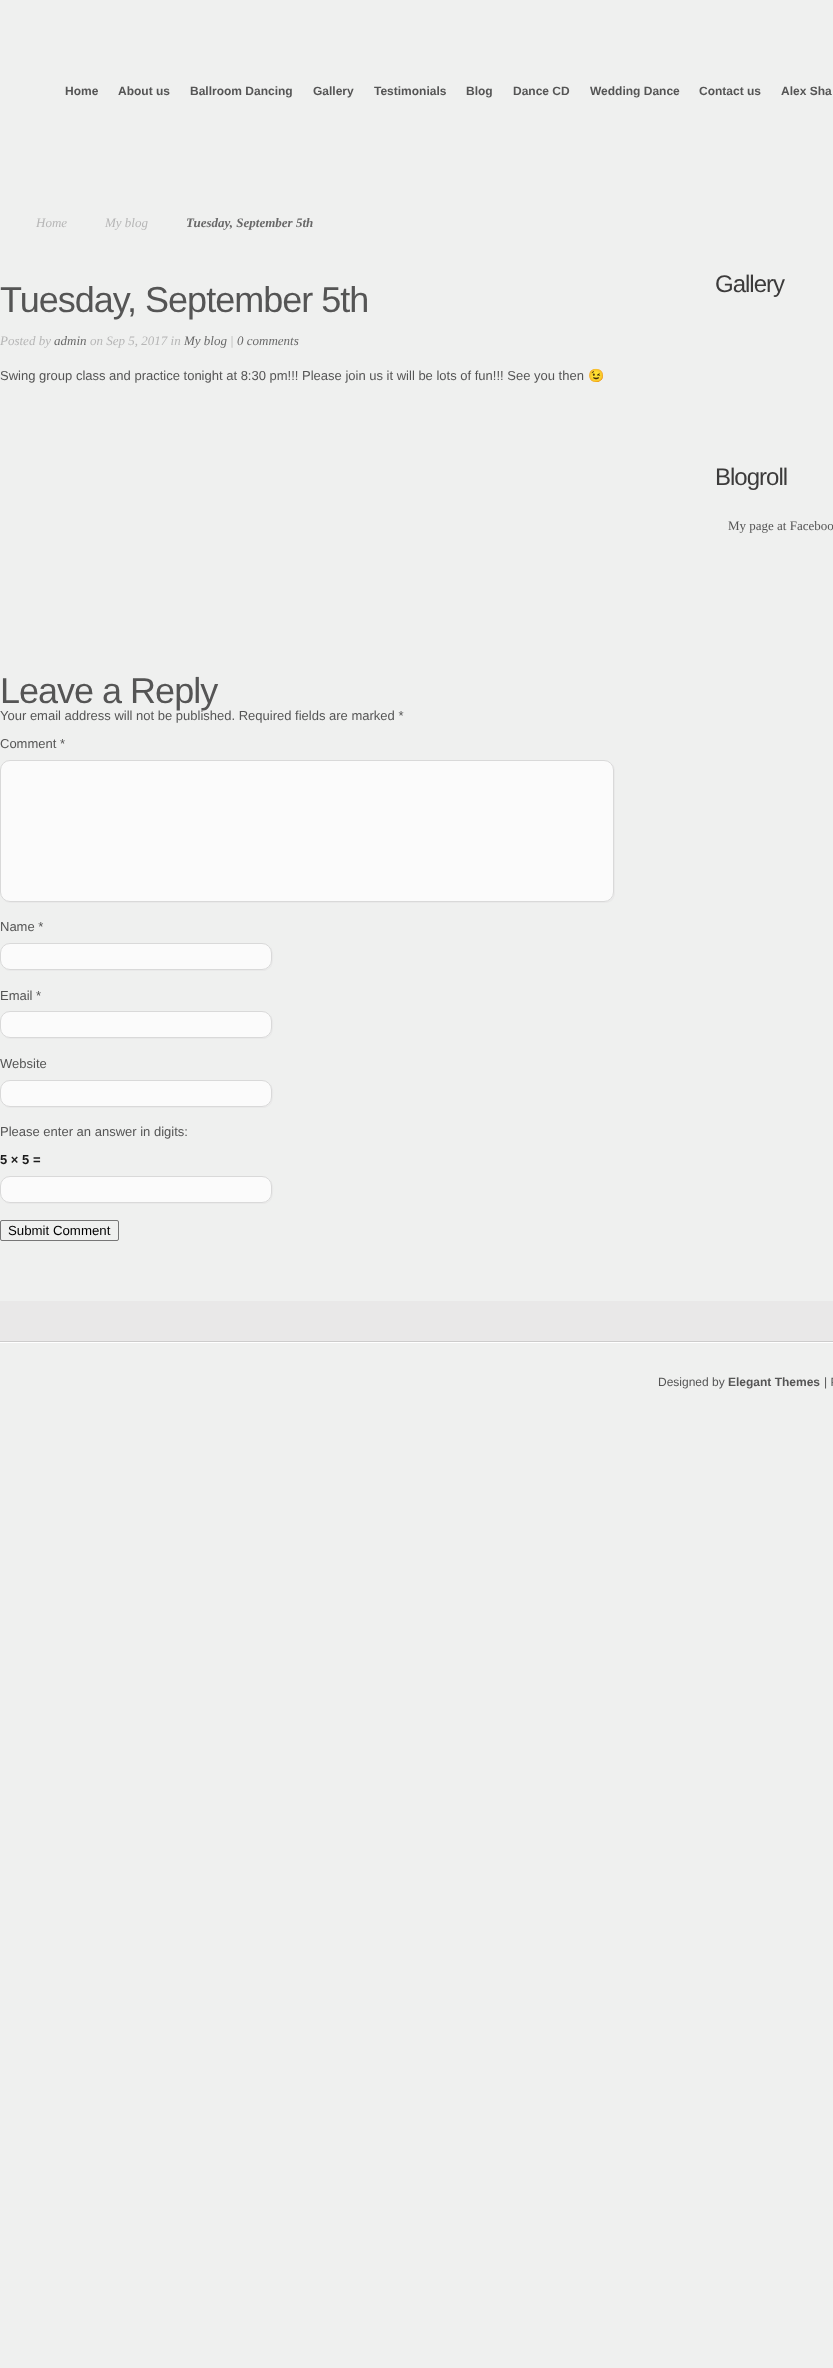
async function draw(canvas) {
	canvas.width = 833;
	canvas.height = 2368;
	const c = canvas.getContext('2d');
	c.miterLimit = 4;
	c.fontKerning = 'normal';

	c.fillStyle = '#eff0ef';
	c.fillRect(0, 0, 833, 2368);
	c.font = 'bold 12px Liberation Sans';
	c.fillStyle = '#555';
	for (const [text, x, y] of [
		['Home', 65, 95],
		['About us', 118, 95],
		['Ballroom Dancing', 190, 95],
		['Gallery', 313, 95],
		['Testimonials', 374, 95],
		['Blog', 466, 95],
		['Dance CD', 513, 95],
		['Wedding Dance', 590, 95],
		['Contact us', 699, 95],
		['Alex Sha', 781, 95],
	]) {
		c.fillText(text, x, y);
	}
	c.font = 'italic 13px Liberation Serif';
	c.fillStyle = '#b6b6b6';
	c.fillText('Home', 36, 227);
	c.fillText('My blog', 105, 227);
	c.font = 'italic bold 13px Liberation Serif';
	c.fillStyle = '#686868';
	c.fillText('Tuesday, September 5th', 186, 227);
	c.letterSpacing = '-1px';
	c.font = '36px Liberation Sans';
	c.fillStyle = '#555';
	c.fillText('Tuesday, September 5th', 0, 312);
	c.letterSpacing = '0px';
	c.font = 'italic 13px Liberation Serif';
	c.fillStyle = '#b6b6b6';
	c.fillText('Posted by', 0, 345);
	c.fillStyle = '#686868';
	c.fillText('admin', 54, 345);
	c.fillStyle = '#b6b6b6';
	c.fillText('on Sep 5, 2017 in', 90, 345);
	c.fillStyle = '#686868';
	c.fillText('My blog', 184, 345);
	c.fillStyle = '#b6b6b6';
	c.fillText('|', 230, 345);
	c.fillStyle = '#686868';
	c.fillText('0 comments', 237, 345);
	c.font = '13px Liberation Sans';
	c.fillStyle = '#555';
	c.fillText('Swing group class and practice tonight at 8:30 pm!!! Please join us it will be lots of fun!!! See you then', 0, 380);
	c.font = '13px Noto Color Emoji';
	c.fillText('😉', 588, 380);
	c.letterSpacing = '-1px';
	c.font = '36px Liberation Sans';
	c.fillText('Leave a Reply', 0, 703);
	c.letterSpacing = '0px';
	c.font = '13px Liberation Sans';
	c.fillText('Your email address will not be published. Required fields are marked *', 0, 720);
	c.fillText('Comment *', 0, 748);
	c.fillStyle = '#e9e9e9';
	c.beginPath();
	c.moveTo(3, 900);
	c.bezierCurveTo(5, 902, 8, 903, 11, 903);
	c.lineTo(605, 903);
	c.bezierCurveTo(611, 903, 615, 899, 615, 893);
	c.lineTo(615, 771);
	c.bezierCurveTo(615, 768, 614, 765, 612, 763);
	c.bezierCurveTo(613, 765, 614, 767, 614, 770);
	c.lineTo(614, 892);
	c.bezierCurveTo(614, 898, 610, 902, 604, 902);
	c.lineTo(10, 902);
	c.bezierCurveTo(7, 902, 5, 901, 3, 900);
	c.closePath();
	c.fill();
	c.fillStyle = '#fbfbfb';
	c.beginPath();
	c.roundRect(0.5, 760.5, 613, 141, 9.5);
	c.fill();
	c.strokeStyle = '#d9d9d9';
	c.stroke();
	c.fillStyle = '#555';
	c.fillText('Name *', 0, 931);
	c.fillStyle = '#e9e9e9';
	c.beginPath();
	c.moveTo(3, 968);
	c.bezierCurveTo(5, 969, 7, 971, 10, 971);
	c.lineTo(265, 971);
	c.bezierCurveTo(268, 970, 271, 968, 272, 965);
	c.bezierCurveTo(274, 960, 274, 950, 270, 946);
	c.bezierCurveTo(271, 948, 272, 950, 272, 953);
	c.lineTo(272, 960);
	c.bezierCurveTo(272, 966, 268, 970, 262, 970);
	c.lineTo(10, 970);
	c.bezierCurveTo(7, 970, 5, 969, 3, 968);
	c.closePath();
	c.fill();
	c.fillStyle = '#fbfbfb';
	c.beginPath();
	c.roundRect(0.5, 943.5, 271, 26, 9.5);
	c.fill();
	c.stroke();
	c.fillStyle = '#555';
	c.fillText('Email *', 0, 1000);
	c.fillStyle = '#e9e9e9';
	c.beginPath();
	c.moveTo(3, 1036);
	c.bezierCurveTo(5, 1037, 7, 1039, 10, 1039);
	c.lineTo(265, 1039);
	c.bezierCurveTo(268, 1038, 271, 1036, 272, 1033);
	c.bezierCurveTo(274, 1028, 274, 1018, 270, 1014);
	c.bezierCurveTo(271, 1016, 272, 1018, 272, 1021);
	c.lineTo(272, 1028);
	c.bezierCurveTo(272, 1034, 268, 1038, 262, 1038);
	c.lineTo(10, 1038);
	c.bezierCurveTo(7, 1038, 5, 1037, 3, 1036);
	c.closePath();
	c.fill();
	c.fillStyle = '#fbfbfb';
	c.beginPath();
	c.roundRect(0.5, 1011.5, 271, 26, 9.5);
	c.fill();
	c.stroke();
	c.fillStyle = '#555';
	c.fillText('Website', 0, 1068);
	c.fillStyle = '#e9e9e9';
	c.beginPath();
	c.moveTo(3, 1105);
	c.bezierCurveTo(5, 1106, 7, 1108, 10, 1108);
	c.lineTo(265, 1108);
	c.bezierCurveTo(268, 1107, 271, 1105, 272, 1102);
	c.bezierCurveTo(274, 1097, 274, 1087, 270, 1083);
	c.bezierCurveTo(271, 1085, 272, 1087, 272, 1090);
	c.lineTo(272, 1097);
	c.bezierCurveTo(272, 1103, 268, 1107, 262, 1107);
	c.lineTo(10, 1107);
	c.bezierCurveTo(7, 1107, 5, 1106, 3, 1105);
	c.closePath();
	c.fill();
	c.fillStyle = '#fbfbfb';
	c.beginPath();
	c.roundRect(0.5, 1080.5, 271, 26, 9.5);
	c.fill();
	c.stroke();
	c.fillStyle = '#555';
	c.fillText('Please enter an answer in digits:', 0, 1136);
	c.font = 'bold 13px Liberation Sans';
	c.fillStyle = '#1c1c1c';
	c.fillText('5 × 5 =', 0, 1164);
	c.fillStyle = '#e9e9e9';
	c.beginPath();
	c.moveTo(3, 1201);
	c.bezierCurveTo(5, 1202, 7, 1204, 10, 1204);
	c.lineTo(265, 1204);
	c.bezierCurveTo(268, 1203, 271, 1201, 272, 1198);
	c.bezierCurveTo(274, 1193, 274, 1183, 270, 1179);
	c.bezierCurveTo(271, 1181, 272, 1183, 272, 1186);
	c.lineTo(272, 1193);
	c.bezierCurveTo(272, 1199, 268, 1203, 262, 1203);
	c.lineTo(10, 1203);
	c.bezierCurveTo(7, 1203, 5, 1202, 3, 1201);
	c.closePath();
	c.fill();
	c.fillStyle = '#fbfbfb';
	c.beginPath();
	c.roundRect(0.5, 1176.5, 271, 26, 9.5);
	c.fill();
	c.stroke();
	c.beginPath();
	c.roundRect(0.5, 1220.5, 118, 20, 1.5);
	c.strokeStyle = '#767676';
	c.stroke();
	c.font = '13.25px Liberation Sans';
	c.fillStyle = '#000';
	c.fillText('Submit Comment', 8, 1235);
	c.letterSpacing = '-1px';
	c.font = '24px Liberation Sans';
	c.fillStyle = '#3c3b3b';
	c.fillText('Gallery', 715, 292);
	c.fillText('Blogroll', 715, 485);
	c.letterSpacing = '0px';
	c.font = '13px Liberation Serif';
	c.fillStyle = '#555';
	c.fillText('My page at Faceboo', 728, 530);
	for (const [x, y, w, h, color] of [
		[0, 1301, 833, 40, '#e9e8e8'],
		[0, 1341, 833, 1, '#cdcccc'],
		[0, 1342, 833, 1, '#fff'],
	]) {
		c.fillStyle = color;
		c.fillRect(x, y, w, h);
	}
	c.font = '12px Liberation Sans';
	c.fillStyle = '#555';
	c.fillText('Designed by', 658, 1386);
	c.font = 'bold 12px Liberation Sans';
	c.fillText('Elegant Themes', 728, 1386);
	c.font = '12px Liberation Sans';
	c.fillText('| P', 824, 1386);
}

draw(document.querySelector('canvas'));
